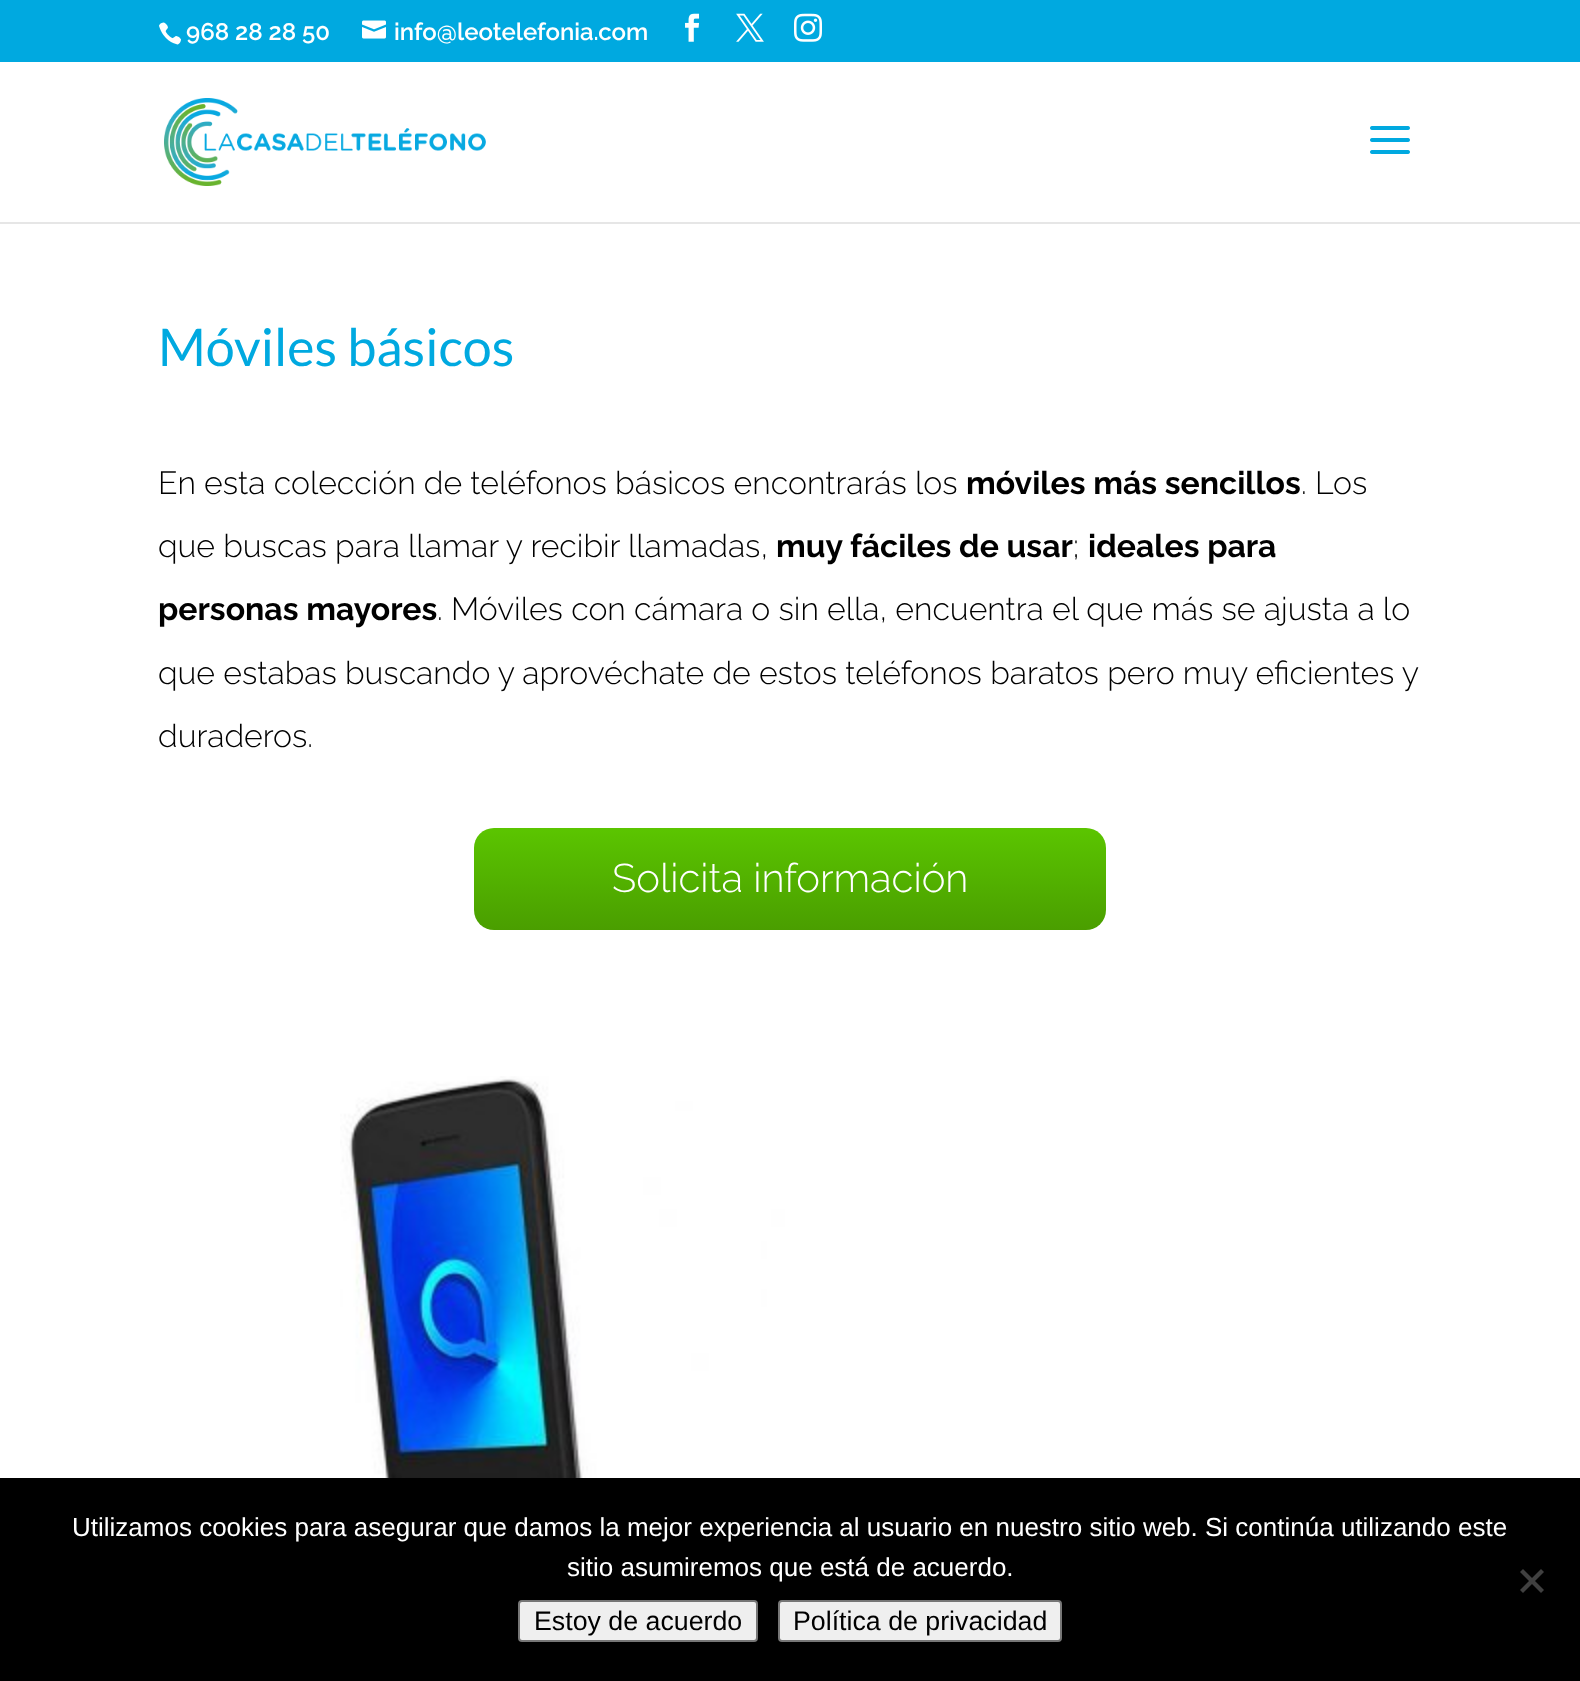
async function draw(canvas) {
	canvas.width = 1580;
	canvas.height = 1681;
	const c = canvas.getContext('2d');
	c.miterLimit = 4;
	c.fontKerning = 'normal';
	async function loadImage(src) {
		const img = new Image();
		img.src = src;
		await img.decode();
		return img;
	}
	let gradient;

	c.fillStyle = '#fff';
	c.fillRect(0, 0, 1580, 1681);
	c.fillStyle = '#00a9e0';
	c.fillRect(0, 0, 1580, 62);
	c.drawImage(await loadImage('img1.png'), 159, 22, 22, 23);
	c.font = '600 24px Raleway';
	c.fillStyle = '#fff';
	c.fillText('968 28 28 50', 186, 40);
	c.drawImage(await loadImage('img2.png'), 362, 20, 24, 19);
	c.fillText('info@leotelefonia.com', 394, 40);
	c.drawImage(await loadImage('img3.png'), 685, 13, 15, 29);
	c.drawImage(await loadImage('img4.png'), 736, 13, 28, 29);
	c.drawImage(await loadImage('img5.png'), 794, 13, 28, 29);
	c.fillStyle = '#e6e6e6';
	c.fillRect(0, 222, 1580, 2);
	c.drawImage(await loadImage('img6.png'), 164, 98, 322, 88);
	c.drawImage(await loadImage('img7.png'), 1370, 126, 40, 28);
	c.font = '52px Lato';
	c.fillStyle = '#00a9e0';
	c.fillText('Móviles básicos', 158, 366);
	c.font = '300 32px Raleway';
	c.fillStyle = '#000';
	c.fillText('En esta colección de teléfonos básicos encontrarás los', 158, 494);
	c.font = 'bold 32px Raleway';
	c.fillText('móviles más sencillos', 966, 494);
	c.font = '300 32px Raleway';
	c.fillText('. Los', 1301, 494);
	c.fillText('que buscas para llamar y recibir llamadas,', 158, 557);
	c.font = 'bold 32px Raleway';
	c.fillText('muy fáciles de usar', 776, 557);
	c.font = '300 32px Raleway';
	c.fillText(';', 1073, 557);
	c.font = 'bold 32px Raleway';
	c.fillText('ideales para', 1088, 557);
	c.fillText('personas mayores', 158, 620);
	c.font = '300 32px Raleway';
	for (const [text, x, y] of [
		['. Móviles con cámara o sin ella, encuentra el que más se ajusta a lo', 437, 620],
		['que estabas buscando y aprovéchate de estos teléfonos baratos pero muy eficientes y', 158, 684],
		['duraderos.', 158, 747],
	]) {
		c.fillText(text, x, y);
	}
	gradient = c.createLinearGradient(790, 828, 790, 930);
	gradient.addColorStop(0, '#5bc500');
	gradient.addColorStop(1, '#4a9e00');
	c.fillStyle = gradient;
	c.beginPath();
	c.roundRect(474, 828, 632, 102, 20);
	c.fill();
	c.font = '300 40px Raleway';
	c.fillStyle = '#fff';
	c.fillText('Solicita información', 612, 892);
	c.drawImage(await loadImage('img8.png'), 340, 1076, 445, 402);
	c.fillStyle = '#000';
	c.fillRect(0, 1478, 1580, 203);
	c.font = '26px Liberation Sans';
	c.fillStyle = '#fff';
	c.fillText('Utilizamos cookies para asegurar que damos la mejor experiencia al usuario en nuestro sitio web. Si continúa utilizando este', 72, 1536);
	c.fillText('sitio asumiremos que está de acuerdo.', 567, 1576);
	c.fillStyle = '#404040';
	c.beginPath();
	c.moveTo(1541, 1569);
	c.lineTo(1544, 1572);
	c.lineTo(1523, 1593);
	c.lineTo(1520, 1590);
	c.closePath();
	c.fill();
	c.beginPath();
	c.moveTo(1520, 1572);
	c.lineTo(1523, 1569);
	c.lineTo(1544, 1590);
	c.lineTo(1541, 1593);
	c.closePath();
	c.fill();
	c.fillStyle = '#efefef';
	c.beginPath();
	c.roundRect(519, 1601, 238, 40, 3);
	c.fill();
	c.strokeStyle = '#767676';
	c.lineWidth = 2;
	c.stroke();
	c.font = '26.75px Liberation Sans';
	c.fillStyle = '#000';
	c.fillText('Estoy de acuerdo', 534, 1630);
	c.fillStyle = '#efefef';
	c.beginPath();
	c.roundRect(779, 1601, 282, 40, 3);
	c.fill();
	c.stroke();
	c.fillStyle = '#000';
	c.fillText('Política de privacidad', 793, 1630);
}

draw(document.querySelector('canvas'));
